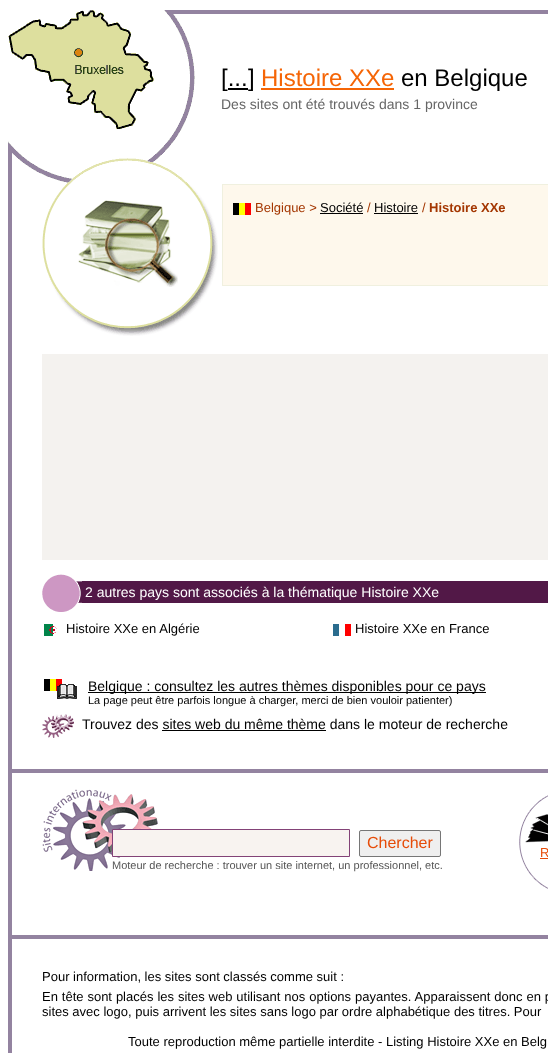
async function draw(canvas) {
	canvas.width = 548;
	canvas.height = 1053;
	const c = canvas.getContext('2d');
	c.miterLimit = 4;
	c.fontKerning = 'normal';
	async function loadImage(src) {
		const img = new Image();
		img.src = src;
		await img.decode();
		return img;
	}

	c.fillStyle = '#fff';
	c.fillRect(0, 0, 548, 1053);
	c.fillStyle = '#9383a0';
	c.fillRect(221, 10, 327, 4);
	c.drawImage(await loadImage('img1.png'), 8, 10, 213, 174);
	c.drawImage(await loadImage('img2.png'), 8, 10, 146, 119);
	c.font = '24px Liberation Sans';
	c.fillStyle = '#000';
	c.fillText('[...', 221, 86);
	c.fillRect(228, 88, 20, 2);
	c.fillText(']', 248, 86);
	c.fillStyle = '#f56506';
	c.fillText('Histoire XXe', 261, 86);
	c.fillRect(261, 88, 133, 2);
	c.fillStyle = '#000';
	c.fillText('en Belgique', 401, 86);
	c.font = '14px Liberation Sans';
	c.fillStyle = '#666';
	c.fillText('Des sites ont été trouvés dans 1 province', 221, 109);
	c.fillStyle = '#9383a0';
	c.fillRect(8, 184, 4, 869);
	c.drawImage(await loadImage('img3.png'), 42, 184, 176, 152);
	c.drawImage(await loadImage('img4.png'), 78, 200, 100, 87);
	for (const [x, y, w, h, color] of [
		[223, 185, 325, 100, '#fef8ec'],
		[222, 184, 326, 1, '#f0f0df'],
		[222, 184, 1, 71, '#f0f0df'],
	]) {
		c.fillStyle = color;
		c.fillRect(x, y, w, h);
	}
	c.drawImage(await loadImage('img5.png'), 233, 203, 18, 12);
	c.font = '13px Liberation Sans';
	c.fillStyle = '#a43702';
	c.fillText('Belgique >', 255, 212);
	c.fillStyle = '#000';
	c.fillText('Société', 320, 212);
	c.fillRect(320, 213, 43, 1);
	c.fillStyle = '#a43702';
	c.fillText('/', 367, 212);
	c.fillStyle = '#000';
	c.fillText('Histoire', 374, 212);
	c.fillRect(374, 213, 44, 1);
	c.fillStyle = '#a43702';
	c.fillText('/', 422, 212);
	c.font = 'bold 13px Liberation Sans';
	c.fillText('Histoire XXe', 429, 212);
	for (const [x, y, w, h, color] of [
		[222, 285, 326, 1, '#f0f0df'],
		[222, 255, 1, 31, '#f0f0df'],
		[42, 354, 506, 206, '#f4f2ef'],
	]) {
		c.fillStyle = color;
		c.fillRect(x, y, w, h);
	}
	c.drawImage(await loadImage('img6.png'), 42, 574, 40, 38);
	c.fillStyle = '#521847';
	c.fillRect(82, 581, 466, 22);
	c.font = '14px Liberation Sans';
	c.fillStyle = '#fff';
	c.fillText('2 autres pays sont associés à la thématique Histoire XXe', 85, 597);
	c.drawImage(await loadImage('img7.png'), 44, 624, 13, 12);
	c.font = '13px Liberation Sans';
	c.fillStyle = '#000';
	c.fillText('Histoire XXe en Algérie', 66, 633);
	c.drawImage(await loadImage('img8.png'), 333, 624, 18, 12);
	c.fillText('Histoire XXe en France', 355, 633);
	c.drawImage(await loadImage('img5.png'), 44, 679, 18, 12);
	c.drawImage(await loadImage('img9.png'), 57, 684, 20, 15);
	c.fillRect(88, 692, 398, 1);
	c.font = '14px Liberation Sans';
	c.fillText('Belgique : consultez les autres thèmes disponibles pour ce pays', 88, 691);
	c.font = '11px Liberation Sans';
	c.fillText('La page peut être parfois longue à charger, merci de bien vouloir patienter)', 88, 704);
	c.drawImage(await loadImage('img10.png'), 42, 714, 32, 24);
	c.font = '14px Liberation Sans';
	c.fillText('Trouvez des sites web du même thème dans le moteur de recherche', 82, 729);
	c.fillRect(162, 730, 164, 1);
	c.fillStyle = '#9383a0';
	c.fillRect(12, 769, 536, 4);
	c.drawImage(await loadImage('img11.png'), 42, 789, 116, 82);
	c.fillStyle = '#f8f3f0';
	c.beginPath();
	c.rect(112.5, 829.5, 237, 27);
	c.fill();
	c.strokeStyle = '#834277';
	c.stroke();
	c.fillStyle = '#efefef';
	c.beginPath();
	c.roundRect(359.5, 830.5, 81, 26, 1.5);
	c.fill();
	c.strokeStyle = '#767676';
	c.stroke();
	c.font = '16px Liberation Sans';
	c.fillStyle = '#e64c09';
	c.fillText('Chercher', 367, 848);
	c.font = '11px Liberation Sans';
	c.fillStyle = '#555';
	c.fillText('Moteur de recherche : trouver un site internet, un professionnel, etc.', 112, 869);
	c.drawImage(await loadImage('img12.png'), 519, 795, 29, 94);
	c.font = '13px Liberation Sans';
	c.fillStyle = '#e64c09';
	c.fillText('R', 540, 857);
	c.fillRect(540, 858, 8, 1);
	c.fillStyle = '#9383a0';
	c.fillRect(12, 935, 536, 4);
	c.fillStyle = '#000';
	c.fillText('Pour information, les sites sont classés comme suit :', 42, 981);
	c.wordSpacing = '0.3px';
	c.fillText('En tête sont placés les sites web utilisant nos options payantes. Apparaissent donc en p', 42, 1001);
	c.wordSpacing = '0px';
	c.fillText('sites avec logo, puis arrivent les sites sans logo par ordre alphabétique des titres. Pour', 42, 1016);
	c.fillText('Toute reproduction même partielle interdite - Listing Histoire XXe en Belg', 128, 1046);
}

draw(document.querySelector('canvas'));
